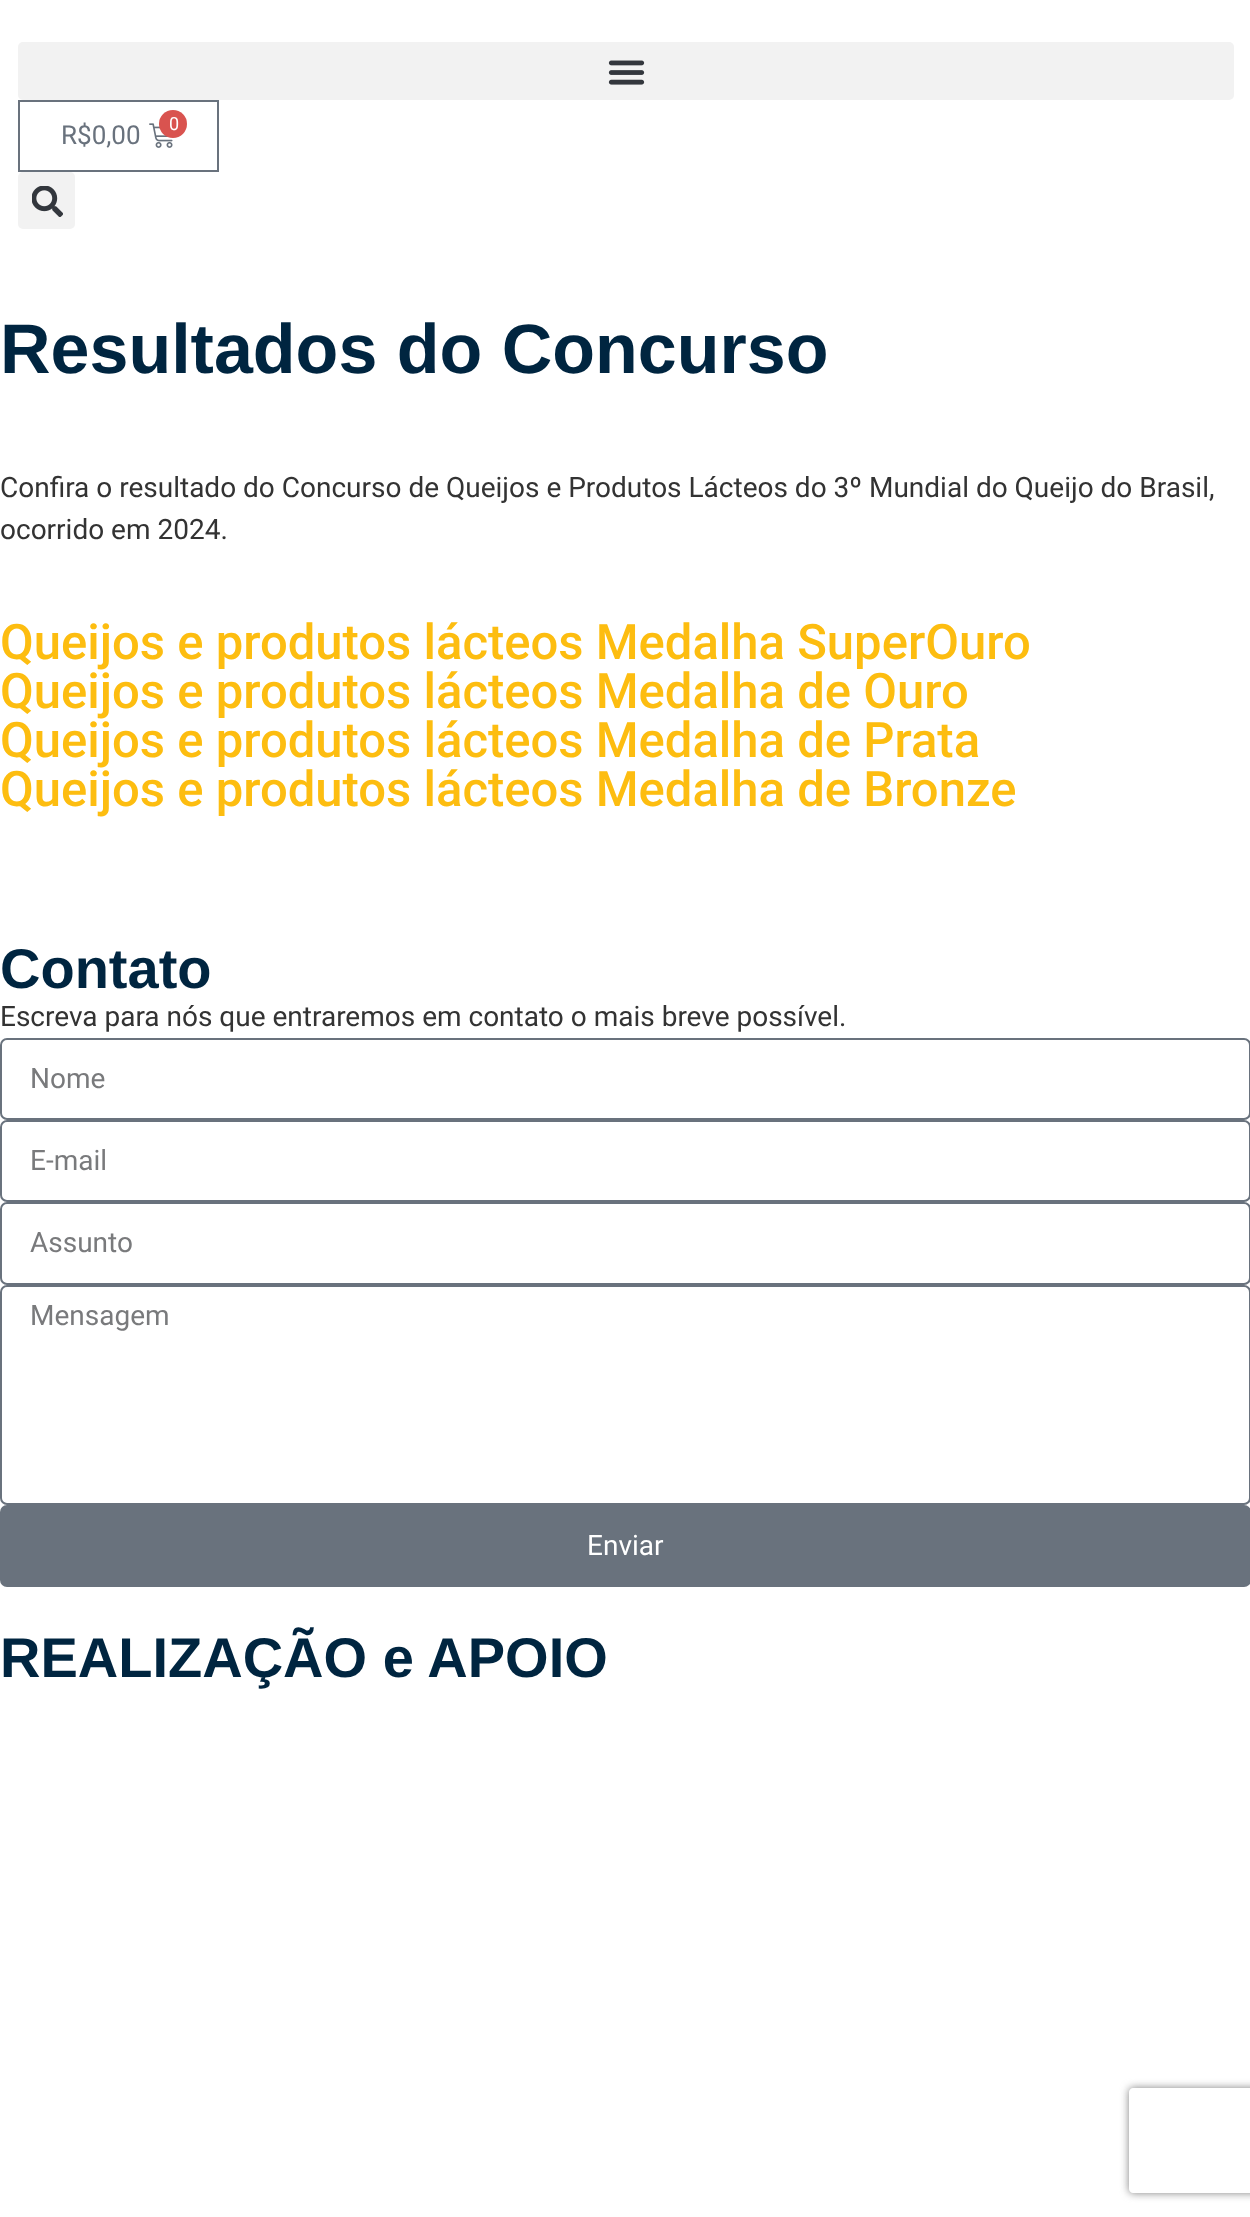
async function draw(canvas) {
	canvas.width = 1250;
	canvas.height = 2217;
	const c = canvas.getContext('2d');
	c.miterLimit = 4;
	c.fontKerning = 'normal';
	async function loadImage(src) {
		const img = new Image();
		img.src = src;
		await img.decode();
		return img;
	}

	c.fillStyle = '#fff';
	c.fillRect(0, 0, 1250, 2217);
	c.fillStyle = '#f2f2f2';
	c.beginPath();
	c.roundRect(18, 42, 1216, 58, 5);
	c.fill();
	c.drawImage(await loadImage('img1.png'), 608, 60, 37, 25);
	c.strokeStyle = '#69727d';
	c.lineWidth = 2;
	c.strokeRect(19, 101, 199, 70);
	c.font = '26px Roboto';
	c.fillStyle = '#69727d';
	c.fillText('R$0,00', 61, 144);
	c.drawImage(await loadImage('img2.png'), 149, 123, 24, 25);
	c.fillStyle = '#d9534f';
	c.beginPath();
	c.arc(173, 124, 14, 0, 2 * Math.PI);
	c.fill();
	c.font = '18px Roboto';
	c.fillStyle = '#fff';
	c.fillText('0', 169, 130);
	c.fillStyle = '#f2f2f2';
	c.beginPath();
	c.roundRect(18, 172, 57, 57, 5);
	c.fill();
	c.drawImage(await loadImage('img3.png'), 32, 186, 31, 31);
	c.font = 'bold 70px Liberation Sans';
	c.fillStyle = '#002540';
	c.fillText('Resultados do Concurso', 0, 373);
	c.font = '28px Roboto';
	c.fillStyle = '#333';
	c.fillText('Confira o resultado do Concurso de Queijos e Produtos Lácteos do 3º Mundial do Queijo do Brasil,', 0, 497);
	c.fillText('ocorrido em 2024.', 0, 539);
	c.font = '500 49px Roboto';
	c.fillStyle = '#fdbd10';
	for (const [text, x, y] of [
		['Queijos e produtos lácteos Medalha SuperOuro', 0, 659],
		['Queijos e produtos lácteos Medalha de Ouro', 0, 708],
		['Queijos e produtos lácteos Medalha de Prata', 0, 757],
		['Queijos e produtos lácteos Medalha de Bronze', 0, 806],
	]) {
		c.fillText(text, x, y);
	}
	c.font = 'bold 56px Liberation Sans';
	c.fillStyle = '#002540';
	c.fillText('Contato', 0, 988);
	c.font = '28px Roboto';
	c.fillStyle = '#333';
	c.fillText('Escreva para nós que entraremos em contato o mais breve possível.', 0, 1026);
	c.beginPath();
	c.roundRect(1, 1039, 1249, 80, 6);
	c.stroke();
	c.fillStyle = '#797a7c';
	c.fillText('Nome', 30, 1088);
	c.beginPath();
	c.roundRect(1, 1121, 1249, 80, 6);
	c.stroke();
	c.fillText('E-mail', 30, 1170);
	c.beginPath();
	c.roundRect(1, 1203, 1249, 81, 6);
	c.stroke();
	c.fillText('Assunto', 30, 1252);
	c.beginPath();
	c.roundRect(1, 1286, 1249, 218, 6);
	c.stroke();
	c.fillText('Mensagem', 30, 1325);
	c.fillStyle = '#69727d';
	c.beginPath();
	c.roundRect(0, 1505, 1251, 82, 7);
	c.fill();
	c.fillStyle = '#fff';
	c.fillText('Enviar', 587, 1555);
	c.font = 'bold 56px Liberation Sans';
	c.fillStyle = '#002540';
	c.fillText('REALIZAÇÃO e APOIO', 0, 1677);
	c.save();
	c.beginPath();
	c.moveTo(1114, 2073);
	c.lineTo(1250, 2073);
	c.lineTo(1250, 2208);
	c.lineTo(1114, 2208);
	c.closePath();
	c.moveTo(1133, 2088);
	c.lineTo(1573, 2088);
	c.bezierCurveTo(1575, 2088, 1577, 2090, 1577, 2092);
	c.lineTo(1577, 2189);
	c.bezierCurveTo(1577, 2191, 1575, 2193, 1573, 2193);
	c.lineTo(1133, 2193);
	c.bezierCurveTo(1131, 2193, 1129, 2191, 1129, 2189);
	c.lineTo(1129, 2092);
	c.bezierCurveTo(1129, 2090, 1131, 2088, 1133, 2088);
	c.closePath();
	c.clip('evenodd');
	c.fillStyle = '#808080';
	c.filter = 'blur(4.5px)';
	c.beginPath();
	c.roundRect(1129, 2088, 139, 105, 4);
	c.fill();
	c.filter = 'none';
	c.restore();
}

draw(document.querySelector('canvas'));
